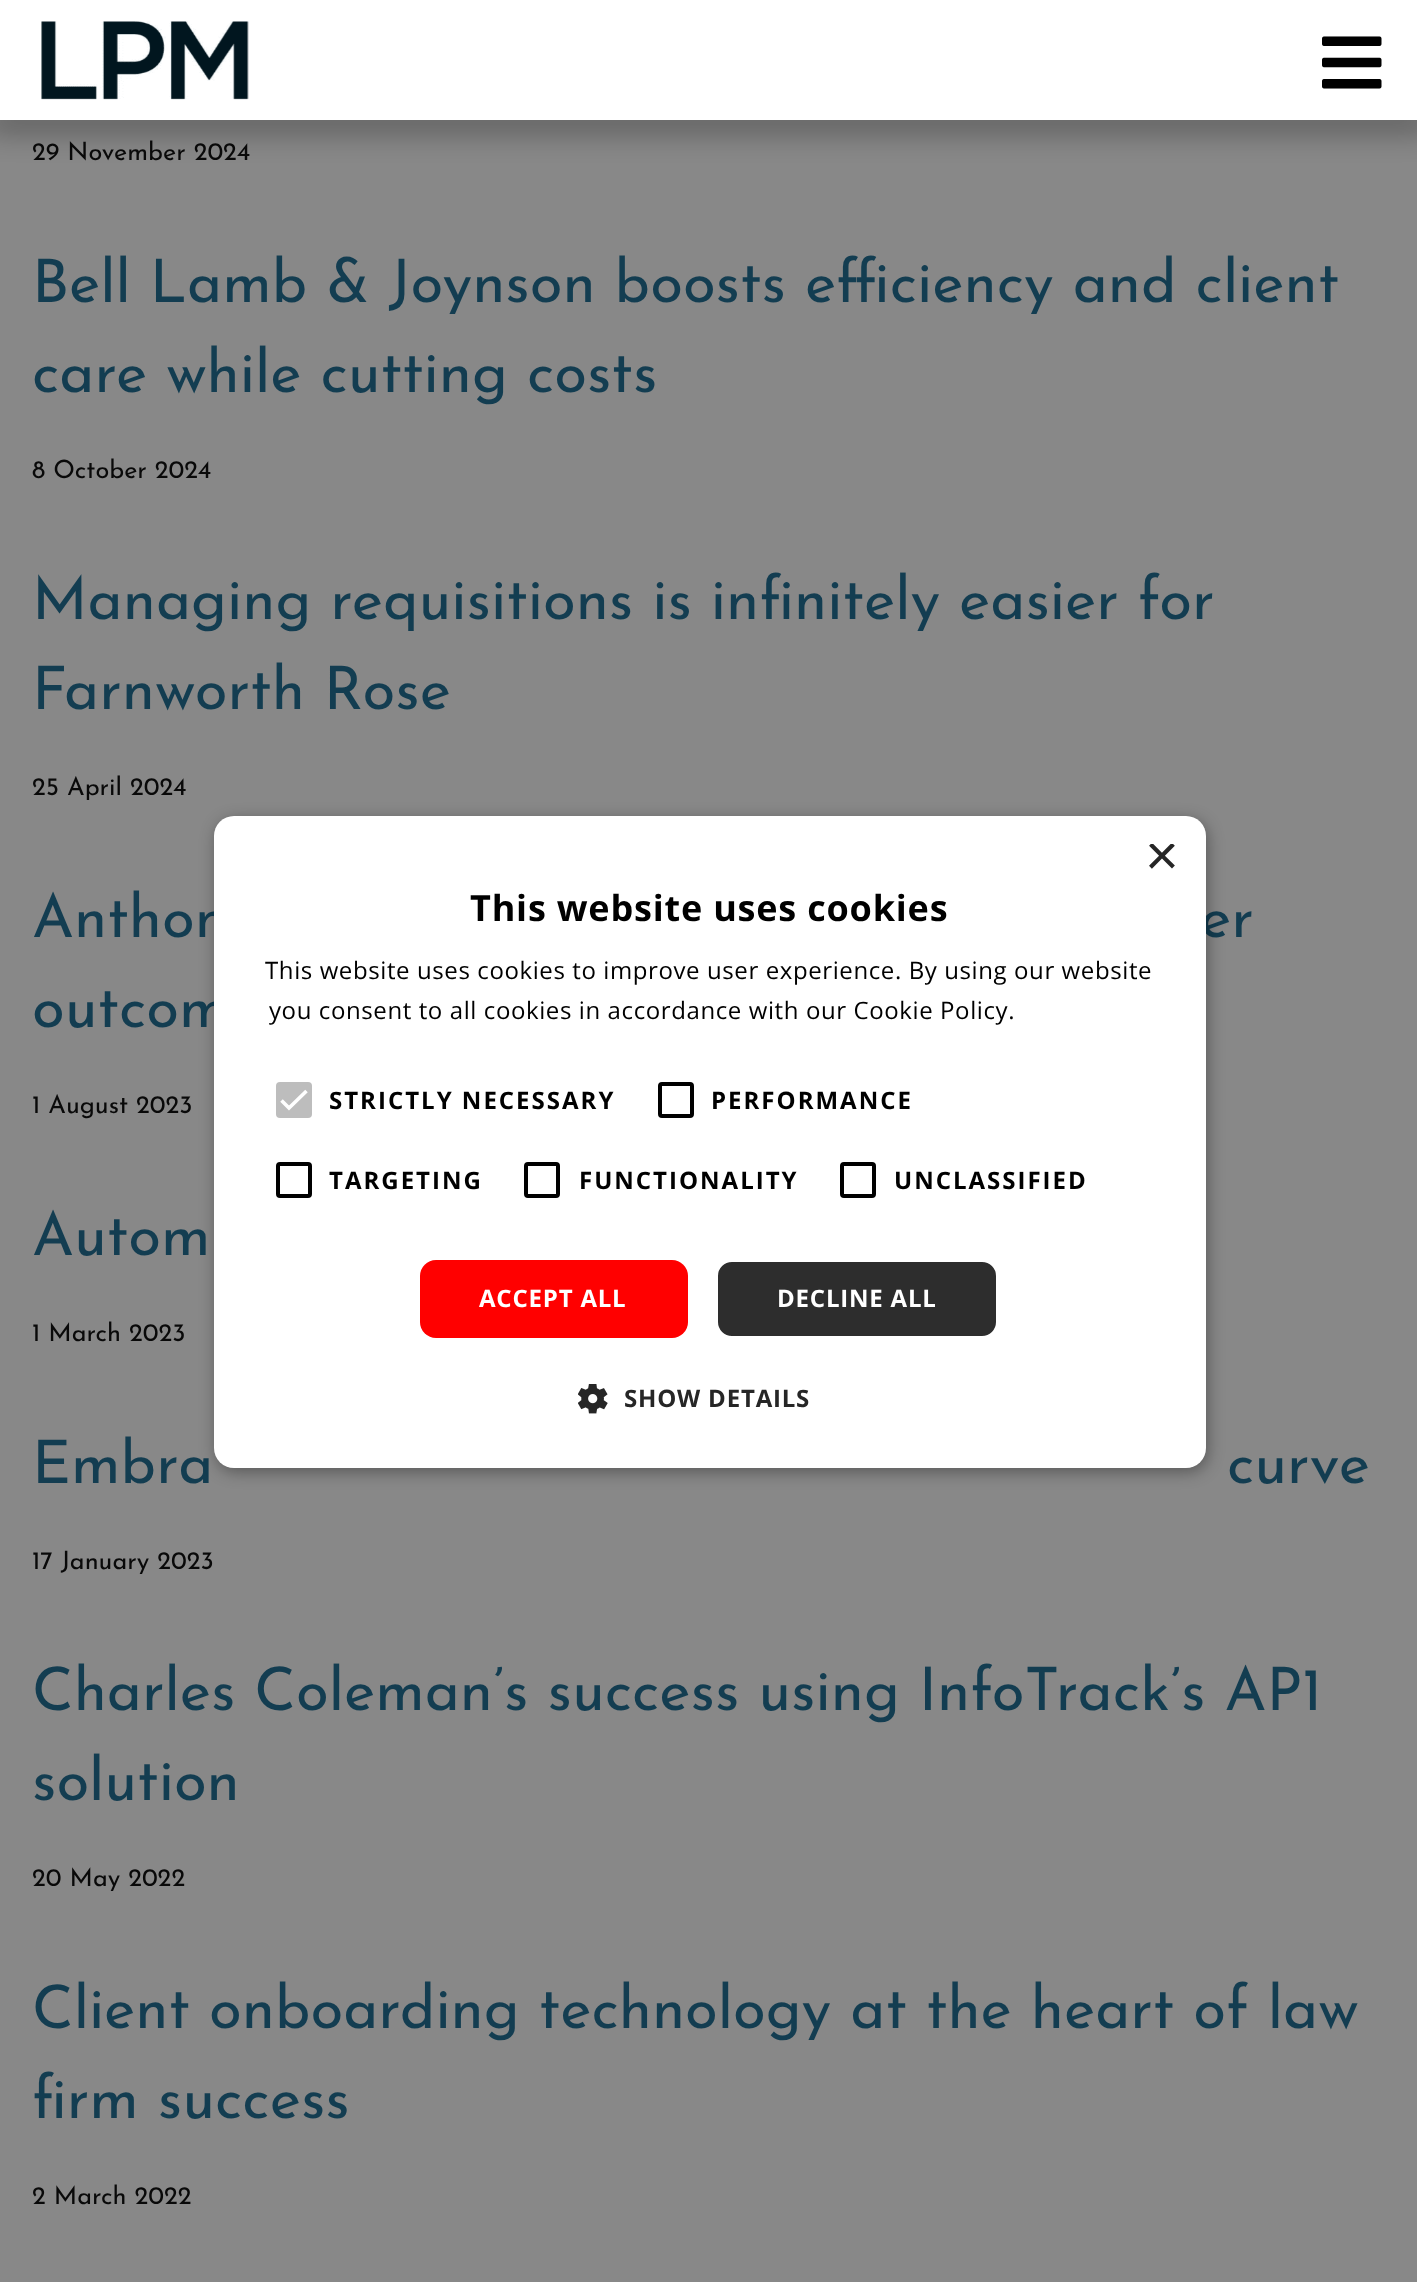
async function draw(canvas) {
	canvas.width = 1417;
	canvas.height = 2282;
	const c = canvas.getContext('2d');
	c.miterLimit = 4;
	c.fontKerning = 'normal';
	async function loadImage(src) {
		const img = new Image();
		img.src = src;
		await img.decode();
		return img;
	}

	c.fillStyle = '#888';
	c.fillRect(0, 0, 1417, 2282);
	c.fillStyle = '#000';
	c.filter = 'blur(16px)';
	c.beginPath();
	c.rect(-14, 116, 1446, 8);
	c.fill();
	c.filter = 'none';
	c.fillStyle = '#fff';
	c.fillRect(0, 0, 1417, 120);
	c.drawImage(await loadImage('img1.png'), 41, 21, 208, 79);
	c.drawImage(await loadImage('img2.png'), 1322, 36, 60, 53);
	c.font = '25.25px Josefin Sans';
	c.fillStyle = '#090909';
	c.fillText('29 November 2024', 32, 160);
	c.font = '60px Josefin Sans';
	c.fillStyle = '#133d51';
	c.fillText('Bell Lamb & Joynson boosts efficiency and client', 32, 302);
	c.fillText('care while cutting costs', 32, 392);
	c.font = '25.25px Josefin Sans';
	c.fillStyle = '#090909';
	c.fillText('8 October 2024', 32, 478);
	c.font = '60px Josefin Sans';
	c.fillStyle = '#133d51';
	c.fillText('Managing requisitions is infinitely easier for', 32, 619);
	c.fillText('Farnworth Rose', 32, 709);
	c.font = '25.25px Josefin Sans';
	c.fillStyle = '#090909';
	c.fillText('25 April 2024', 32, 795);
	c.font = '60px Josefin Sans';
	c.fillStyle = '#133d51';
	for (const [text, x, y] of [
		['Anthon', 32, 937],
		['er', 1200, 937],
		['outcom', 32, 1027],
	]) {
		c.fillText(text, x, y);
	}
	c.font = '25.25px Josefin Sans';
	c.fillStyle = '#090909';
	c.fillText('1 August 2023', 32, 1113);
	c.font = '60px Josefin Sans';
	c.fillStyle = '#133d51';
	c.fillText('Autom', 32, 1255);
	c.font = '25.25px Josefin Sans';
	c.fillStyle = '#090909';
	c.fillText('1 March 2023', 32, 1341);
	c.font = '60px Josefin Sans';
	c.fillStyle = '#133d51';
	c.fillText('Embra', 32, 1483);
	c.fillText('curve', 1227, 1483);
	c.font = '25.25px Josefin Sans';
	c.fillStyle = '#090909';
	c.fillText('17 January 2023', 32, 1569);
	c.font = '60px Josefin Sans';
	c.fillStyle = '#133d51';
	c.fillText('Charles Coleman’s success using InfoTrack’s AP1', 32, 1710);
	c.fillText('solution', 32, 1800);
	c.font = '25.25px Josefin Sans';
	c.fillStyle = '#090909';
	c.fillText('20 May 2022', 32, 1886);
	c.font = '60px Josefin Sans';
	c.fillStyle = '#133d51';
	c.fillText('Client onboarding technology at the heart of law', 32, 2028);
	c.fillText('firm success', 32, 2118);
	c.font = '25.25px Josefin Sans';
	c.fillStyle = '#090909';
	c.fillText('2 March 2022', 32, 2204);
	c.fillStyle = '#00000059';
	c.filter = 'blur(8px)';
	c.beginPath();
	c.roundRect(216, 820, 992, 652, 20);
	c.fill();
	c.filter = 'none';
	c.fillStyle = '#fff';
	c.beginPath();
	c.roundRect(214, 816, 992, 652, 20);
	c.fill();
	c.save();
	c.beginPath();
	c.rect(1146, 844, 30, 30);
	c.clip();
	c.font = '58px Liberation Sans';
	c.fillStyle = '#262626';
	c.fillText('×', 1145, 875);
	c.restore();
	c.letterSpacing = '0.8px';
	c.font = 'bold 36px Open Sans';
	c.fillStyle = '#000';
	c.fillText('This website uses cookies', 470, 921);
	c.letterSpacing = '0.6px';
	c.font = '24px Open Sans';
	c.fillText('This website uses cookies to improve user experience. By using our website', 265, 979);
	c.fillText('you consent to all cookies in accordance with our Cookie Policy.', 269, 1019);
	c.fillStyle = '#bdbdbd';
	c.beginPath();
	c.roundRect(276, 1082, 36, 36, 4);
	c.fill();
	c.beginPath();
	c.moveTo(281.5, 1100.5);
	c.lineTo(289, 1108);
	c.lineTo(306.5, 1091);
	c.strokeStyle = '#fff';
	c.lineWidth = 3.6;
	c.stroke();
	c.letterSpacing = '2px';
	c.font = 'bold 24px Open Sans';
	c.fillStyle = '#000';
	c.fillText('STRICTLY NECESSARY', 329, 1109);
	c.beginPath();
	c.roundRect(660, 1084, 32, 32, 2);
	c.strokeStyle = '#000';
	c.lineWidth = 4;
	c.stroke();
	c.fillText('PERFORMANCE', 711, 1109);
	c.beginPath();
	c.roundRect(278, 1164, 32, 32, 2);
	c.stroke();
	c.fillText('TARGETING', 329, 1189);
	c.beginPath();
	c.roundRect(526, 1164, 32, 32, 2);
	c.stroke();
	c.fillText('FUNCTIONALITY', 579, 1189);
	c.beginPath();
	c.roundRect(842, 1164, 32, 32, 2);
	c.stroke();
	c.fillText('UNCLASSIFIED', 894, 1189);
	c.fillStyle = '#f00';
	c.beginPath();
	c.roundRect(420, 1260, 268, 78, 16);
	c.fill();
	c.letterSpacing = '0.8px';
	c.fillStyle = '#fff';
	c.fillText('ACCEPT ALL', 479, 1307);
	c.fillStyle = '#2d2d2d';
	c.beginPath();
	c.roundRect(717, 1261, 280, 76, 15);
	c.fill();
	c.strokeStyle = '#fff';
	c.lineWidth = 2;
	c.stroke();
	c.fillStyle = '#fff';
	c.fillText('DECLINE ALL', 777, 1307);
	c.drawImage(await loadImage('img3.png'), 578, 1384, 30, 30);
	c.fillStyle = '#262626';
	c.fillText('SHOW DETAILS', 624, 1407);
}

draw(document.querySelector('canvas'));
